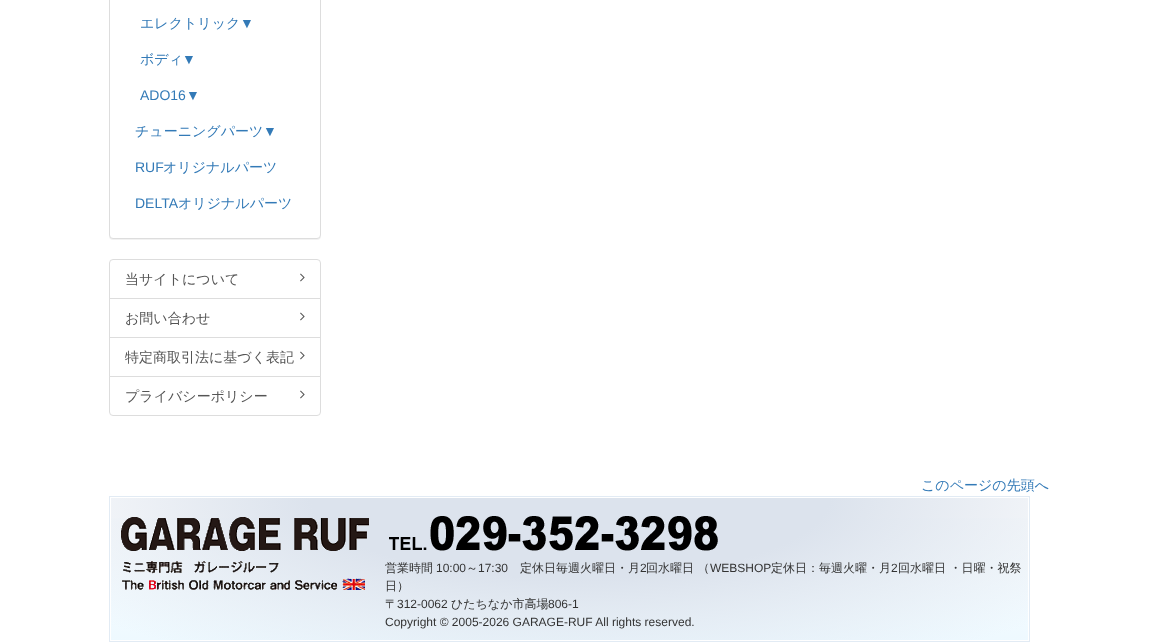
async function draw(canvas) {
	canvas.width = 1157;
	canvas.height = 642;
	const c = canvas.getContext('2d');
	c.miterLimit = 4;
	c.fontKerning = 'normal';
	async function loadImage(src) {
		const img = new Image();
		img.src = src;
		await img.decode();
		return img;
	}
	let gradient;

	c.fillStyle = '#fff';
	c.fillRect(0, 0, 1157, 642);
	c.fillStyle = '#0000000d';
	c.filter = 'blur(0.5px)';
	c.beginPath();
	c.roundRect(109, -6, 212, 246, 4);
	c.fill();
	c.filter = 'none';
	c.fillStyle = '#fff';
	c.beginPath();
	c.roundRect(109.5, -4.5, 211, 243, 3.5);
	c.fill();
	c.strokeStyle = '#ddd';
	c.stroke();
	c.font = '500 14px WenQuanYi Zen Hei';
	c.fillStyle = '#337ab7';
	c.fillText('エレクトリック', 140, 28);
	c.font = '14px Liberation Sans';
	c.fillText('▼', 240, 28);
	c.font = '500 14px WenQuanYi Zen Hei';
	c.fillText('ボディ', 140, 64);
	c.font = '14px Liberation Sans';
	c.fillText('▼', 182, 64);
	c.fillText('ADO16▼', 140, 100);
	c.font = '500 14px WenQuanYi Zen Hei';
	c.fillText('チューニングパーツ', 135, 136);
	c.font = '14px Liberation Sans';
	c.fillText('▼', 263, 136);
	c.fillText('RUF', 135, 172);
	c.font = '500 14px WenQuanYi Zen Hei';
	c.fillText('オリジナルパーツ', 163, 172);
	c.font = '14px Liberation Sans';
	c.fillText('DELTA', 135, 208);
	c.font = '500 14px WenQuanYi Zen Hei';
	c.fillText('オリジナルパーツ', 178, 208);
	c.beginPath();
	c.roundRect(109.5, 259.5, 211, 39, [3.5, 3.5, 0, 0]);
	c.stroke();
	c.fillStyle = '#555';
	c.fillText('当サイトについて', 125, 284);
	c.drawImage(await loadImage('img1.png'), 300, 273, 5, 9);
	c.strokeRect(109.5, 298.5, 211, 39);
	c.fillText('お問い合わせ', 125, 323);
	c.drawImage(await loadImage('img1.png'), 300, 312, 5, 9);
	c.strokeRect(109.5, 337.5, 211, 39);
	c.fillText('特定商取引法に基づく表記', 125, 362);
	c.drawImage(await loadImage('img1.png'), 300, 351, 5, 9);
	c.fillStyle = '#fff';
	c.beginPath();
	c.roundRect(109.5, 376.5, 211, 39, [0, 0, 3.5, 3.5]);
	c.fill();
	c.stroke();
	c.fillStyle = '#555';
	c.fillText('プライバシーポリシー', 125, 401);
	c.drawImage(await loadImage('img1.png'), 300, 390, 5, 9);
	c.fillStyle = '#337ab7';
	c.fillText('このページの先頭へ', 921, 490);
	gradient = c.createLinearGradient(570, 497, 570, 641);
	gradient.addColorStop(0, '#fff');
	gradient.addColorStop(1, '#eef9ff');
	c.fillStyle = gradient;
	c.fillRect(111, 518, 917, 122);
	c.strokeStyle = '#e2ebf4';
	c.strokeRect(109.5, 496.5, 920, 145);
	gradient = c.createRadialGradient(570, 1605.49, 0, 570, 1605.49, 648);
	gradient.addColorStop(0.4, '#dce3ed');
	gradient.addColorStop(0.95, '#dce3ed00');
	c.fillStyle = gradient;
	c.beginPath();
	c.rect(111, 498, 917, 142);
	c.save();
	c.clip();
	c.scale(1, 201 / 648);
	c.fillRect(0, 0, 1157, 2070);
	c.restore();
	c.drawImage(await loadImage('img2.png'), 121, 516, 597, 74);
	c.font = '500 12px WenQuanYi Zen Hei';
	c.fillStyle = '#333';
	c.fillText('営業時間', 385, 572);
	c.font = '12px Liberation Sans';
	c.fillText('10:00', 436, 572);
	c.font = '500 12px WenQuanYi Zen Hei';
	c.fillText('～', 466, 572);
	c.font = '12px Liberation Sans';
	c.fillText('17:30', 478, 572);
	c.font = '500 12px WenQuanYi Zen Hei';
	c.fillText('定休日毎週火曜日・月', 520, 572);
	c.font = '12px Liberation Sans';
	c.fillText('2', 640, 572);
	c.font = '500 12px WenQuanYi Zen Hei';
	c.fillText('回水曜日 （', 646, 572);
	c.font = '12px Liberation Sans';
	c.fillText('WEBSHOP', 710, 572);
	c.font = '500 12px WenQuanYi Zen Hei';
	c.fillText('定休日：毎週火曜・月', 771, 572);
	c.font = '12px Liberation Sans';
	c.fillText('2', 891, 572);
	c.font = '500 12px WenQuanYi Zen Hei';
	for (const [text, x, y] of [
		['回水曜日 ・日曜・祝祭', 898, 572],
		['日）', 385, 590],
		['〒', 385, 608],
	]) {
		c.fillText(text, x, y);
	}
	c.font = '12px Liberation Sans';
	c.fillText('312-0062', 397, 608);
	c.font = '500 12px WenQuanYi Zen Hei';
	c.fillText('ひたちなか市高場', 451, 608);
	c.font = '12px Liberation Sans';
	c.fillText('806-1', 548, 608);
	c.fillText('Copyright © 2005-2026 GARAGE-RUF All rights reserved.', 385, 626);
}

draw(document.querySelector('canvas'));
